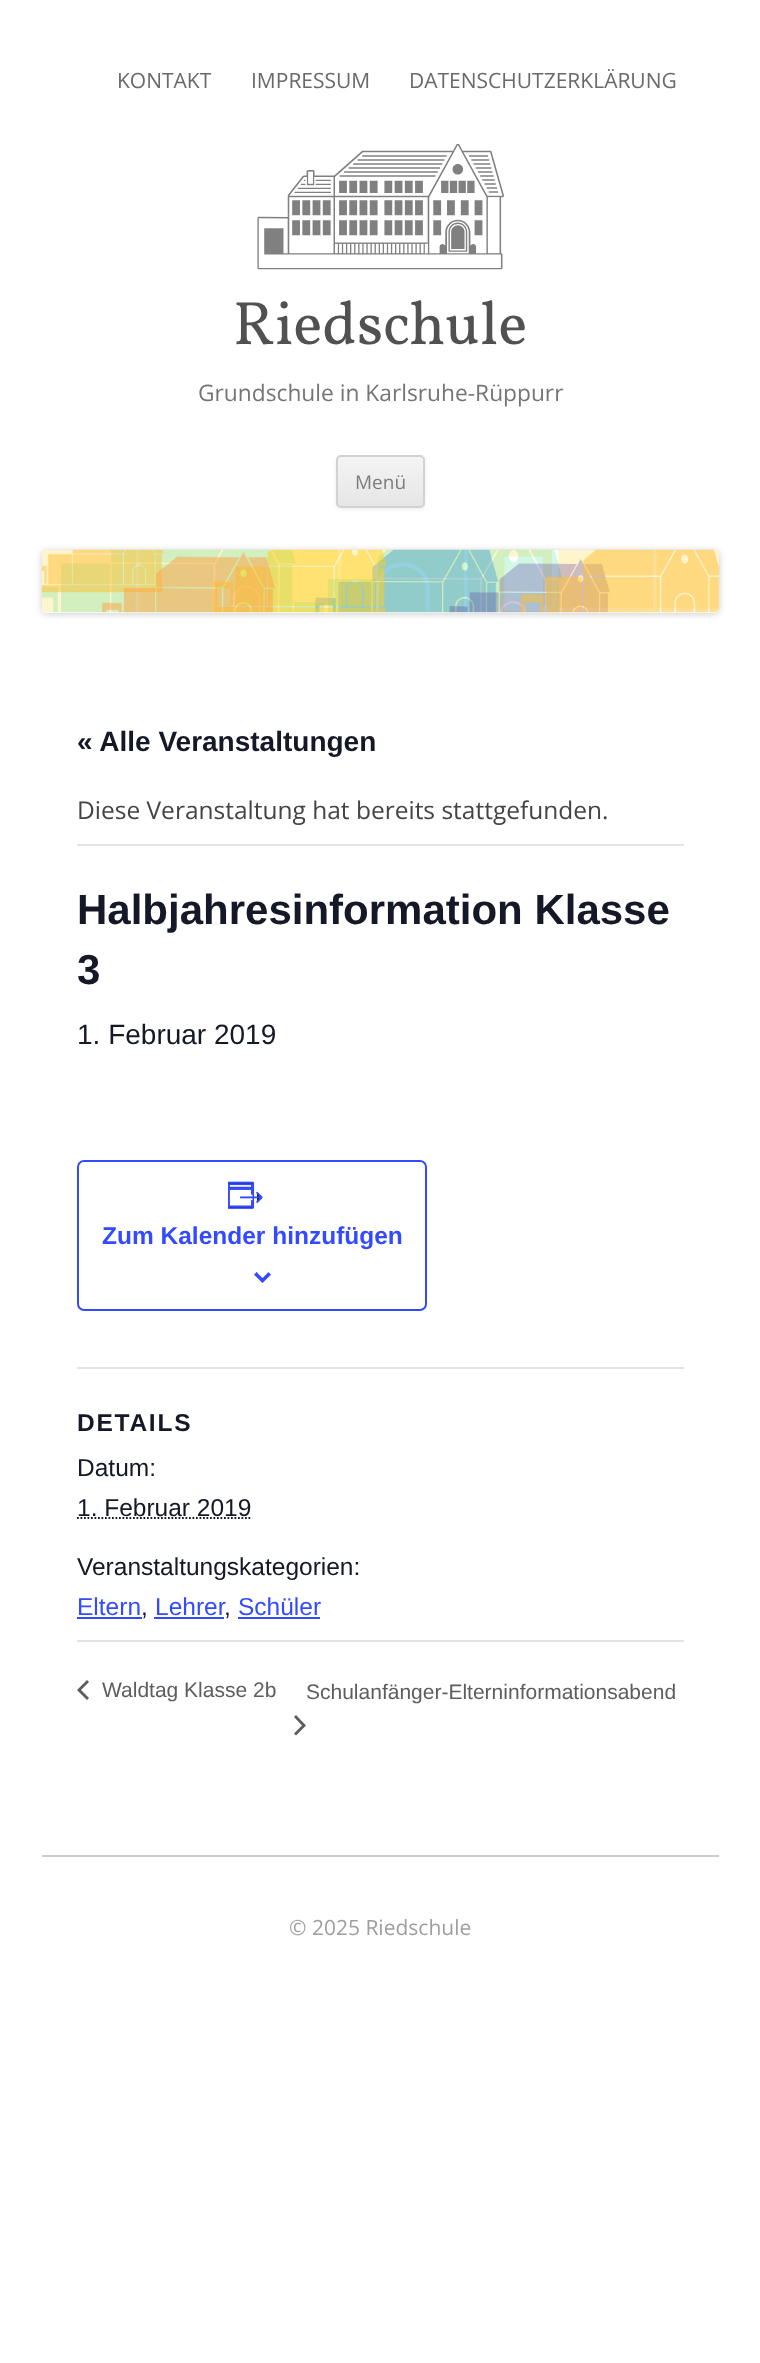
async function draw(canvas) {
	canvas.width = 760;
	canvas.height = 2363;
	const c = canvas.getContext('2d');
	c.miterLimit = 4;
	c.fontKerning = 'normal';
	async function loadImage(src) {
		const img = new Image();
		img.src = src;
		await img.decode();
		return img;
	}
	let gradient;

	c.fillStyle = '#fff';
	c.fillRect(0, 0, 760, 2363);
	c.font = '21px Open Sans';
	c.fillStyle = '#6a6a6a';
	for (const [text, x, y] of [
		['KONTAKT', 117, 88],
		['IMPRESSUM', 251, 88],
		['DATENSCHUTZERKLÄRUNG', 409, 88],
	]) {
		c.fillText(text, x, y);
	}
	c.drawImage(await loadImage('img1.png'), 257, 144, 247, 126);
	c.font = '61.25px Vollkorn';
	c.fillStyle = '#515151';
	c.fillText('Riedschule', 233, 344);
	c.font = '22.75px Open Sans';
	c.fillStyle = '#757575';
	c.fillText('Grundschule in Karlsruhe-Rüppurr', 198, 401);
	c.fillStyle = '#4040401a';
	c.filter = 'blur(2px)';
	c.beginPath();
	c.roundRect(336, 457, 89, 52, 5);
	c.fill();
	c.filter = 'none';
	c.save();
	c.beginPath();
	c.roundRect(336, 455, 89, 53, 5);
	c.clip();
	gradient = c.createLinearGradient(381, 457, 381, 506);
	gradient.addColorStop(0, '#f4f4f4');
	gradient.addColorStop(1, '#e6e6e6');
	c.fillStyle = gradient;
	c.fillRect(336, 457, 89, 49);
	c.restore();
	c.beginPath();
	c.roundRect(337, 456, 87, 51, 4);
	c.strokeStyle = '#d2d2d2';
	c.lineWidth = 2;
	c.stroke();
	c.font = '19px Open Sans';
	c.fillStyle = '#7c7c7c';
	c.fillText('Menü', 355, 489);
	c.save();
	c.beginPath();
	c.moveTo(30, 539);
	c.lineTo(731, 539);
	c.lineTo(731, 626);
	c.lineTo(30, 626);
	c.closePath();
	c.moveTo(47, 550);
	c.lineTo(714, 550);
	c.bezierCurveTo(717, 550, 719, 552, 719, 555);
	c.lineTo(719, 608);
	c.bezierCurveTo(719, 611, 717, 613, 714, 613);
	c.lineTo(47, 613);
	c.bezierCurveTo(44, 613, 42, 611, 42, 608);
	c.lineTo(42, 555);
	c.bezierCurveTo(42, 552, 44, 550, 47, 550);
	c.closePath();
	c.clip('evenodd');
	c.fillStyle = '#00000033';
	c.filter = 'blur(3.5px)';
	c.beginPath();
	c.roundRect(42, 551, 677, 63, 5);
	c.fill();
	c.filter = 'none';
	c.restore();
	c.drawImage(await loadImage('img2.png'), 42, 549, 678, 64);
	c.font = 'bold 28px Liberation Sans';
	c.fillStyle = '#141827';
	c.fillText('« Alle Veranstaltungen', 77, 751);
	c.fillStyle = '#e4e4e4';
	c.fillRect(77, 844, 607, 2);
	c.font = '24.5px Open Sans';
	c.fillStyle = '#444';
	c.fillText('Diese Veranstaltung hat bereits stattgefunden.', 77, 819);
	c.font = 'bold 42px Liberation Sans';
	c.fillStyle = '#141827';
	c.fillText('Halbjahresinformation Klasse', 77, 924);
	c.fillText('3', 77, 984);
	c.font = '28px Liberation Sans';
	c.fillText('1. Februar 2019', 77, 1044);
	c.beginPath();
	c.roundRect(78, 1161, 348, 149, 6);
	c.strokeStyle = '#334aff';
	c.stroke();
	c.drawImage(await loadImage('img3.png'), 228, 1181, 35, 28);
	c.font = 'bold 24.5px Liberation Sans';
	c.fillStyle = '#334aff';
	c.fillText('Zum Kalender hinzufügen', 102, 1244);
	c.drawImage(await loadImage('img4.png'), 254, 1272, 17, 11);
	c.fillStyle = '#e4e4e4';
	c.fillRect(77, 1367, 607, 2);
	c.letterSpacing = '1.75px';
	c.fillStyle = '#141827';
	c.fillText('DETAILS', 77, 1431);
	c.letterSpacing = '0px';
	c.font = '24.5px Liberation Sans';
	c.fillText('Datum:', 77, 1476);
	c.fillText('1. Februar 2019', 77, 1516);
	c.beginPath();
	c.moveTo(77, 1518);
	c.lineTo(251.5, 1518);
	c.strokeStyle = '#141827';
	c.lineWidth = 1.8;
	c.setLineDash([1.75, 1.75]);
	c.stroke();
	c.fillText('Veranstaltungskategorien:', 77, 1575);
	c.fillStyle = '#334aff';
	c.fillText('Eltern', 77, 1615);
	c.fillRect(77, 1617, 65, 2);
	c.fillStyle = '#141827';
	c.fillText(',', 141, 1615);
	c.fillStyle = '#334aff';
	c.fillText('Lehrer', 155, 1615);
	c.fillRect(154, 1617, 70, 2);
	c.fillStyle = '#141827';
	c.fillText(',', 224, 1615);
	c.fillStyle = '#334aff';
	c.fillText('Schüler', 238, 1615);
	c.fillRect(238, 1617, 82, 2);
	c.fillStyle = '#e4e4e4';
	c.fillRect(77, 1640, 607, 2);
	c.fillStyle = '#5d5d5d';
	c.beginPath();
	c.moveTo(89, 1698);
	c.lineTo(87, 1700);
	c.lineTo(77, 1690);
	c.lineTo(87, 1680);
	c.lineTo(89, 1682);
	c.lineTo(81, 1690);
	c.closePath();
	c.fill();
	c.font = '21px Liberation Sans';
	c.fillText('Waldtag Klasse 2b', 102, 1697);
	c.fillText('Schulanfänger-Elterninformationsabend', 306, 1699);
	c.beginPath();
	c.moveTo(294, 1717);
	c.lineTo(296, 1715);
	c.lineTo(306, 1725.5);
	c.lineTo(296, 1735.5);
	c.lineTo(294, 1733.5);
	c.lineTo(302, 1725.5);
	c.closePath();
	c.fill();
	c.fillStyle = '#ccc';
	c.fillRect(42, 1855, 677, 2);
	c.font = '21px Open Sans';
	c.fillStyle = '#9f9f9f';
	c.fillText('© 2025 Riedschule', 289, 1935);
}

draw(document.querySelector('canvas'));
